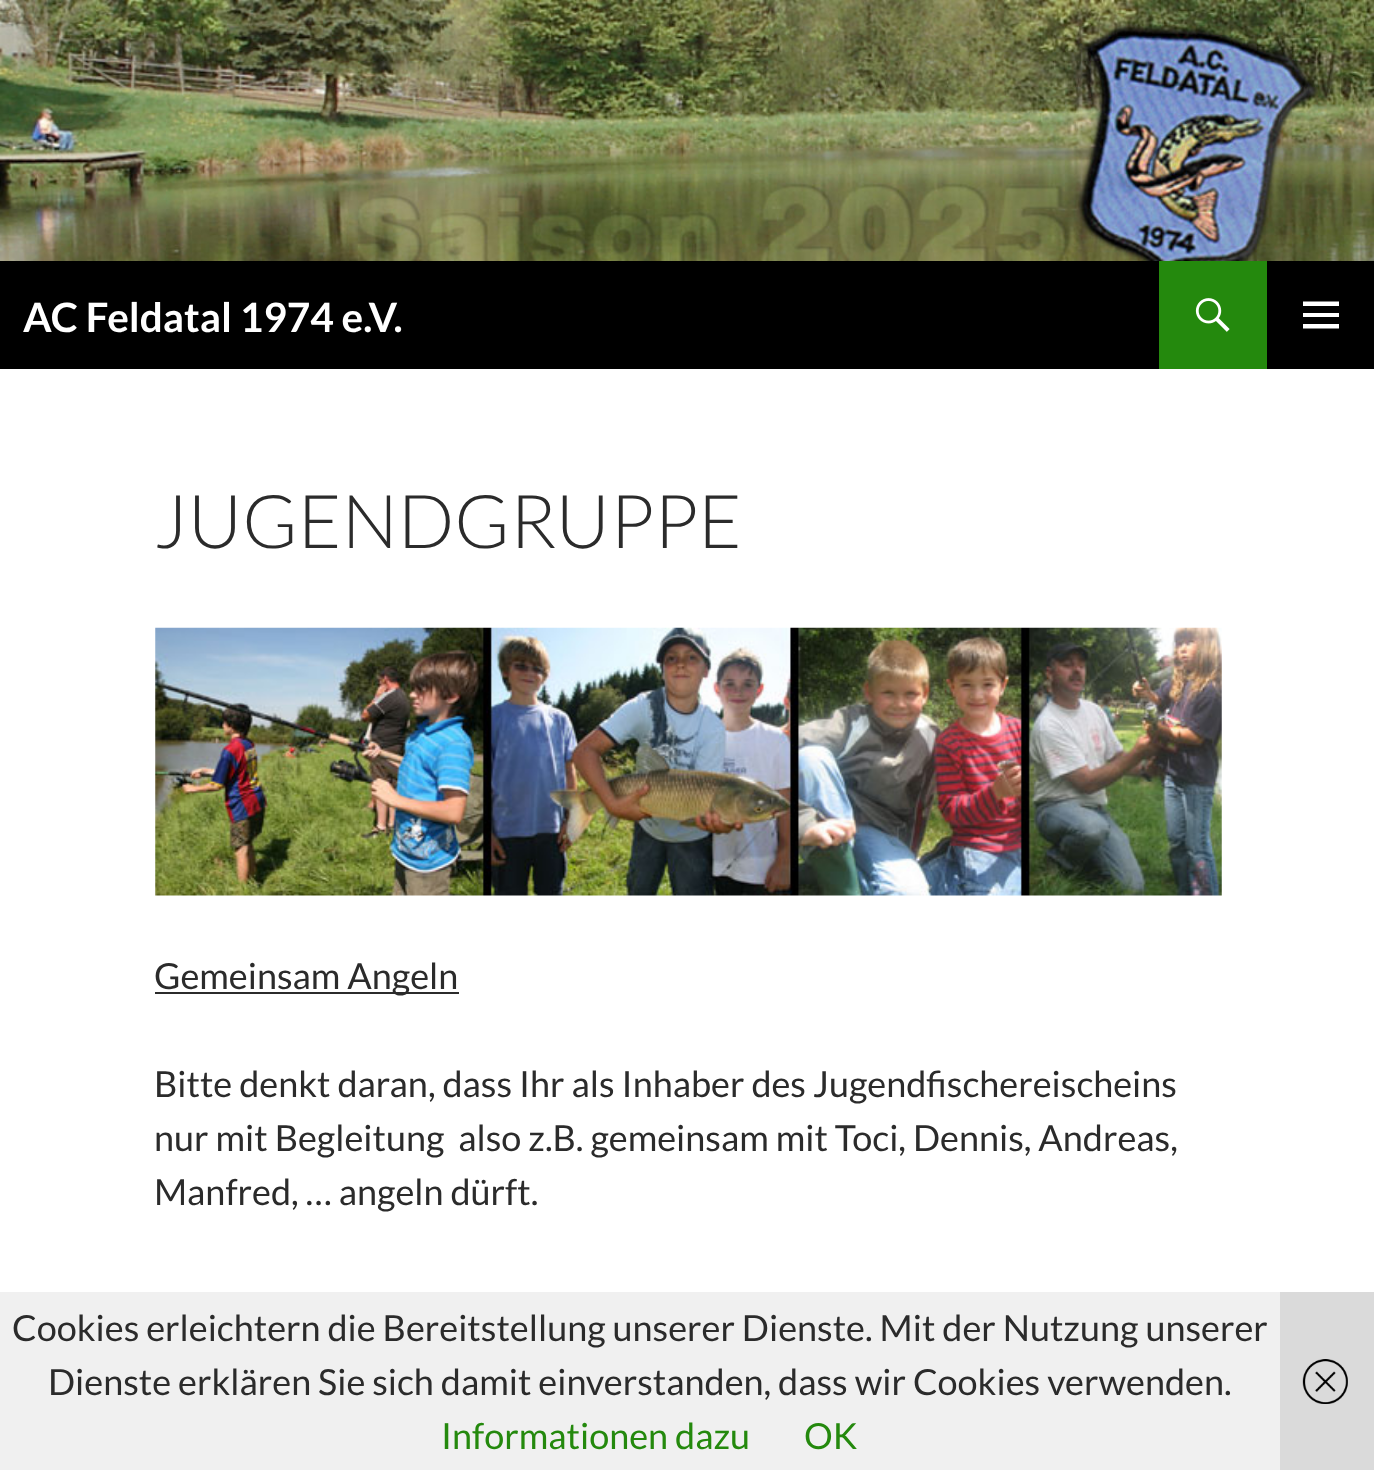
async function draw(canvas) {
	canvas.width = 1374;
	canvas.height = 1470;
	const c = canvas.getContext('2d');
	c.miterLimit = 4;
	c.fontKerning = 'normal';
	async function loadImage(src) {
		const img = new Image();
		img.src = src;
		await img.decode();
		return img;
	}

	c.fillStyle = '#fff';
	c.fillRect(0, 0, 1374, 1470);
	c.drawImage(await loadImage('img1.png'), 0, 0, 1374, 261);
	c.fillStyle = '#000';
	c.fillRect(0, 261, 1374, 108);
	c.font = 'bold 40.5px Lato';
	c.fillStyle = '#fff';
	c.fillText('AC Feldatal 1974 e.V.', 23, 332);
	c.fillStyle = '#24890d';
	c.fillRect(1159, 261, 108, 108);
	c.drawImage(await loadImage('img2.png'), 1195, 298, 35, 34);
	c.fillStyle = '#fff';
	c.beginPath();
	c.moveTo(1303, 328.5);
	c.lineTo(1303, 324);
	c.lineTo(1339, 324);
	c.lineTo(1339, 328.5);
	c.closePath();
	c.moveTo(1303, 317);
	c.lineTo(1303, 313);
	c.lineTo(1339, 313);
	c.lineTo(1339, 317);
	c.closePath();
	c.moveTo(1303, 306);
	c.lineTo(1303, 301.5);
	c.lineTo(1339, 301.5);
	c.lineTo(1339, 306);
	c.closePath();
	c.fill();
	c.font = '300 74.25px Lato';
	c.fillStyle = '#2b2b2b';
	c.fillText('JUGENDGRUPPE', 154, 548);
	c.drawImage(await loadImage('img3.png'), 155, 627, 1067, 269);
	c.fillRect(155, 992, 304, 2);
	c.font = '36px Lato';
	for (const [text, x, y] of [
		['Gemeinsam Angeln', 154, 989],
		['Bitte denkt daran, dass Ihr als Inhaber des Jugendfischereischeins', 154, 1097],
		['nur mit Begleitung  also z.B. gemeinsam mit Toci, Dennis, Andreas,', 154, 1151],
		['Manfred, … angeln dürft.', 154, 1205],
	]) {
		c.fillText(text, x, y);
	}
	c.fillStyle = '#eeeeeee6';
	c.fillRect(0, 1292, 1280, 178);
	c.fillStyle = '#2b2b2b';
	c.fillText('Cookies erleichtern die Bereitstellung unserer Dienste. Mit der Nutzung unserer', 12, 1341);
	c.fillText('Dienste erklären Sie sich damit einverstanden, dass wir Cookies verwenden.', 48, 1395);
	c.fillStyle = '#24890d';
	c.fillText('Informationen dazu', 441, 1449);
	c.fillText('OK', 804, 1449);
	c.fillStyle = '#dadada';
	c.fillRect(1280, 1292, 94, 178);
	c.drawImage(await loadImage('img4.png'), 1302, 1359, 46, 45);
}

draw(document.querySelector('canvas'));
